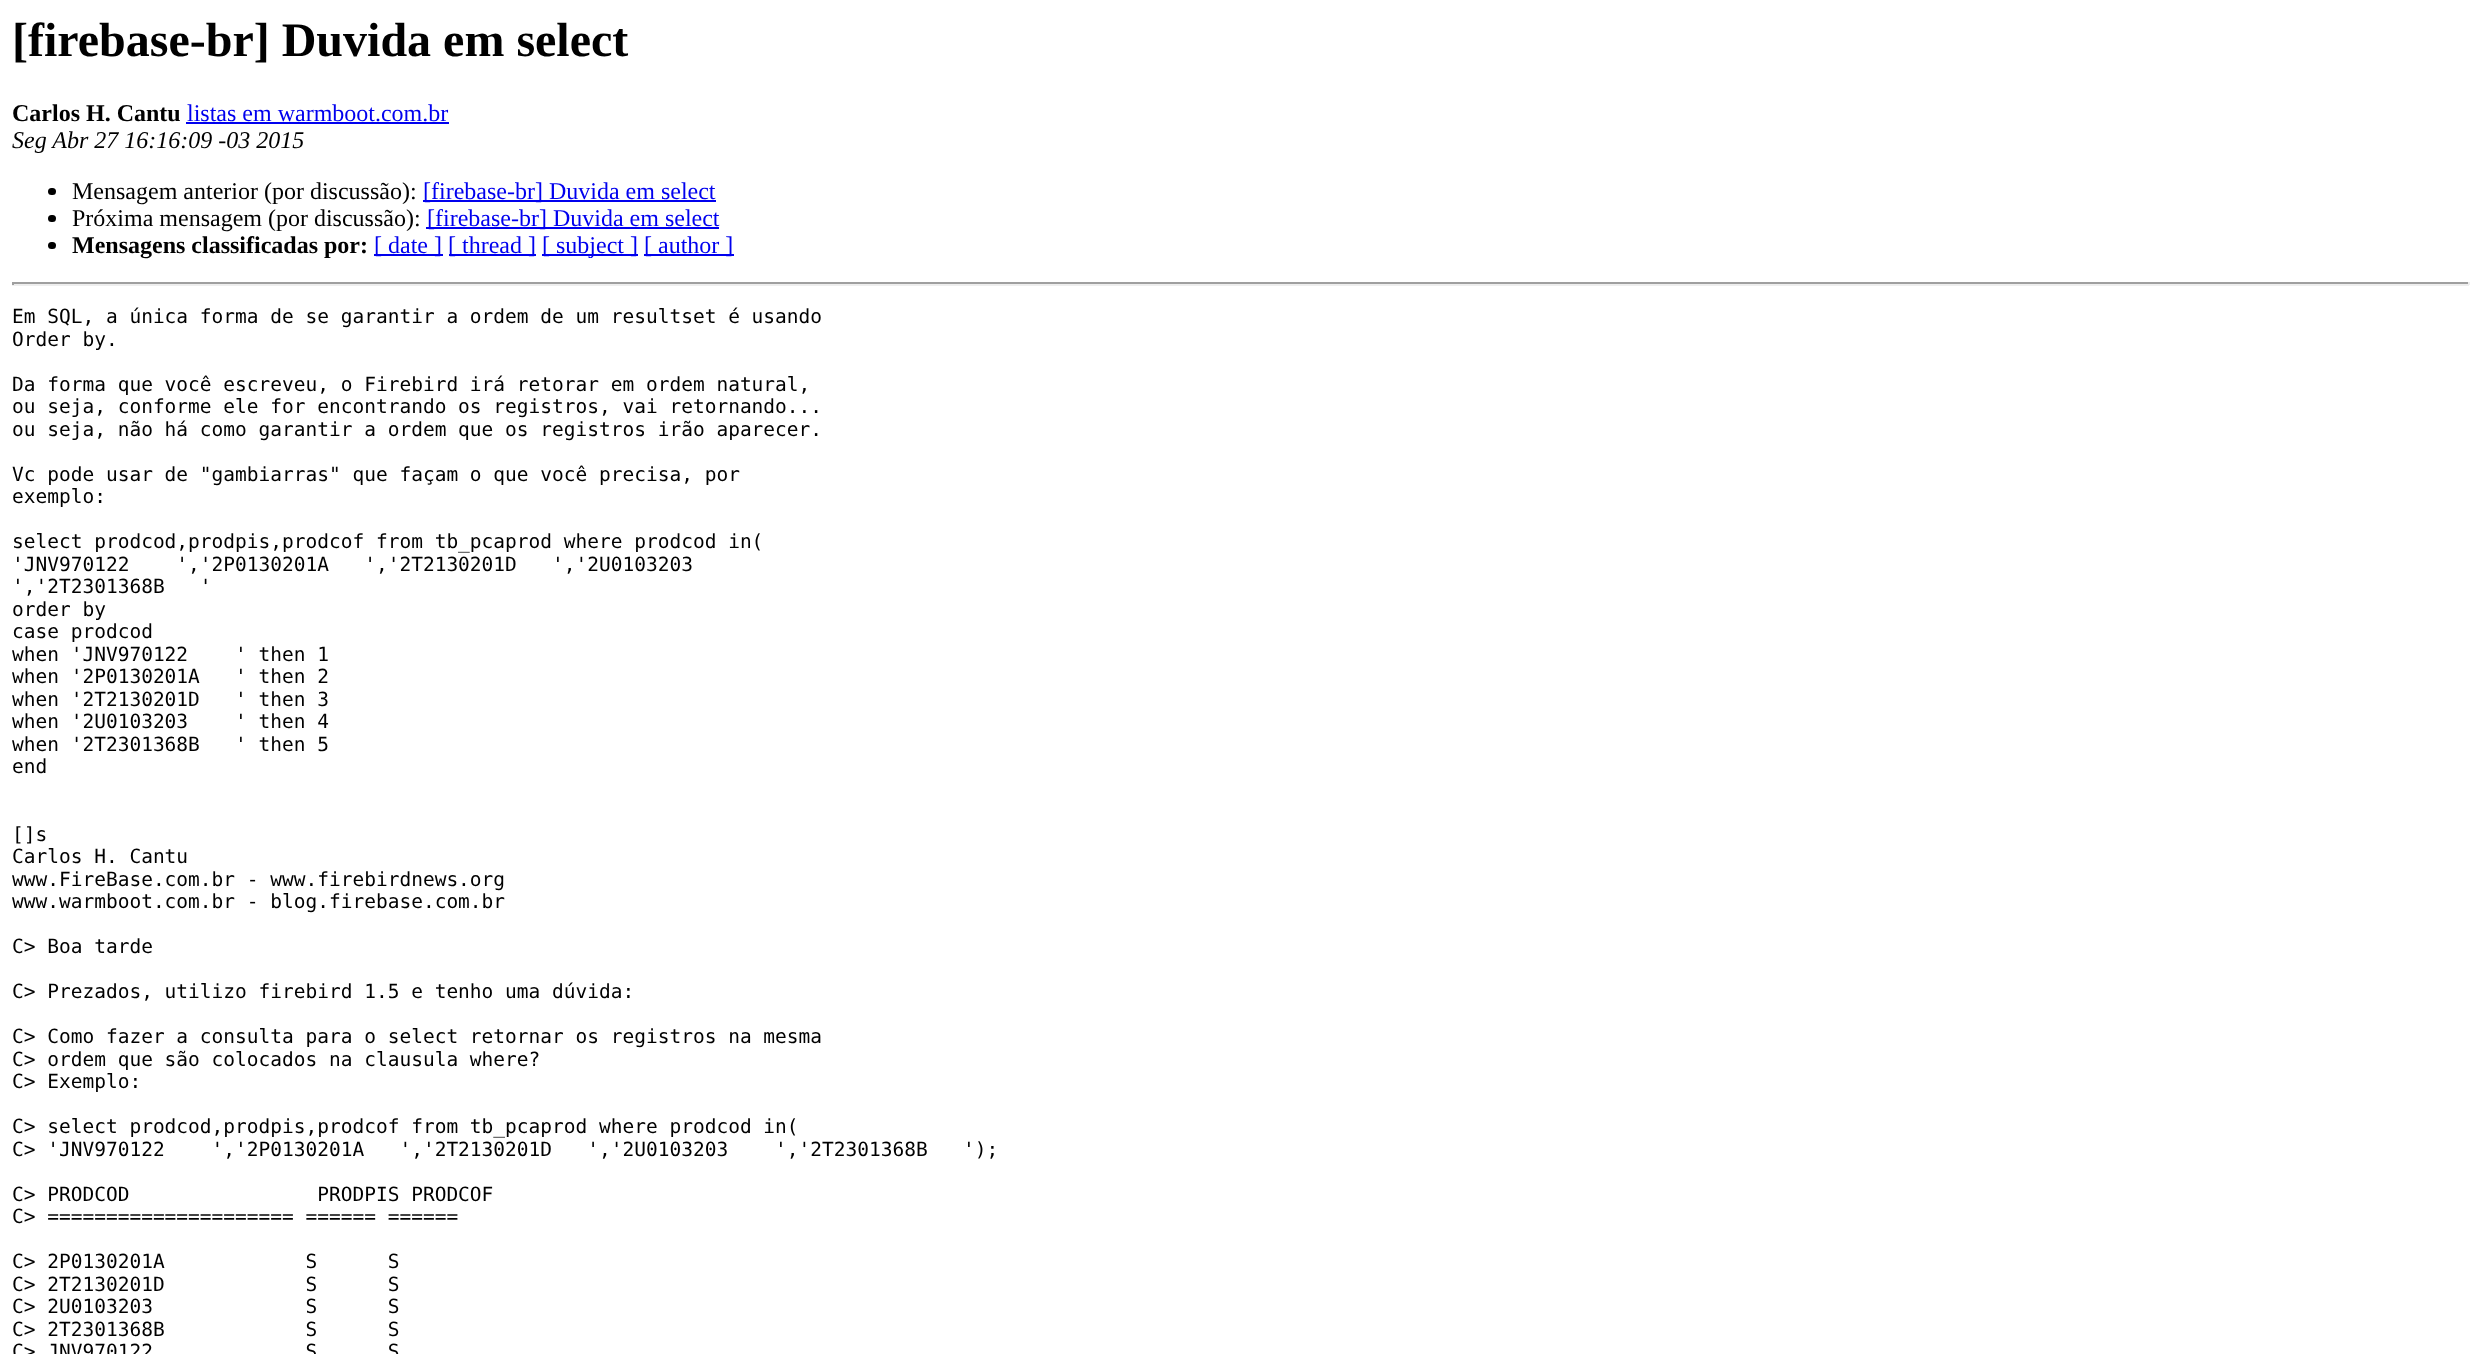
async function draw(canvas) {
	canvas.width = 2480;
	canvas.height = 1354;
	const c = canvas.getContext('2d');
	c.miterLimit = 4;
	c.fontKerning = 'normal';

	c.fillStyle = '#fff';
	c.fillRect(0, 0, 2480, 1354);
	c.font = 'bold 48px Liberation Serif';
	c.fillStyle = '#000';
	c.fillText('[firebase-br] Duvida em select', 12, 56);
	c.font = 'bold 24px Liberation Serif';
	c.fillText('Carlos H. Cantu', 12, 121);
	c.font = '24px Liberation Serif';
	c.fillStyle = '#00e';
	c.fillText('listas em warmboot.com.br', 187, 121);
	c.fillRect(186, 122, 263, 2);
	c.font = 'italic 24px Liberation Serif';
	c.fillStyle = '#000';
	c.fillText('Seg Abr 27 16:16:09 -03 2015', 12, 148);
	c.beginPath();
	c.roundRect(48, 188, 8, 7, 3.5);
	c.fill();
	c.font = '24px Liberation Serif';
	c.fillText('Mensagem anterior (por discussão):', 72, 199);
	c.fillStyle = '#00e';
	c.fillRect(423, 200, 293, 2);
	c.fillText('[firebase-br] Duvida em select', 423, 199);
	c.fillStyle = '#000';
	c.beginPath();
	c.roundRect(48, 215, 8, 7, 3.5);
	c.fill();
	c.fillText('Próxima mensagem (por discussão):', 72, 226);
	c.fillStyle = '#00e';
	c.fillRect(426, 227, 293, 2);
	c.fillText('[firebase-br] Duvida em select', 427, 226);
	c.fillStyle = '#000';
	c.beginPath();
	c.roundRect(48, 242, 8, 7, 3.5);
	c.fill();
	c.font = 'bold 24px Liberation Serif';
	c.fillText('Mensagens classificadas por:', 72, 253);
	c.fillStyle = '#00e';
	c.fillRect(374, 254, 69, 2);
	c.font = '24px Liberation Serif';
	c.fillText('[ date ]', 374, 253);
	c.fillRect(449, 254, 87, 2);
	c.fillText('[ thread ]', 448, 253);
	c.fillRect(542, 254, 96, 2);
	c.fillText('[ subject ]', 542, 253);
	c.fillRect(644, 254, 90, 2);
	c.fillText('[ author ]', 644, 253);
	for (const [x, y, w, h, color] of [
		[12, 282, 2457, 2, '#9f9f9f'],
		[2468, 282, 2, 3, '#eee'],
		[12, 284, 2457, 2, '#eee'],
		[12, 282, 2, 3, '#9f9f9f'],
	]) {
		c.fillStyle = color;
		c.fillRect(x, y, w, h);
	}
	c.font = '19.5px DejaVu Sans Mono';
	c.fillStyle = '#000';
	for (const [text, x, y] of [
		['Em SQL, a única forma de se garantir a ordem de um resultset é usando', 12, 323],
		['Order by.', 12, 346],
		['Da forma que você escreveu, o Firebird irá retorar em ordem natural,', 12, 391],
		['ou seja, conforme ele for encontrando os registros, vai retornando...', 12, 413],
		['ou seja, não há como garantir a ordem que os registros irão aparecer.', 12, 436],
		['Vc pode usar de "gambiarras" que façam o que você precisa, por', 12, 481],
		['exemplo:', 12, 503],
		['select prodcod,prodpis,prodcof from tb_pcaprod where prodcod in(', 12, 548],
		['\'JNV970122    \',\'2P0130201A   \',\'2T2130201D   \',\'2U0103203', 12, 571],
		['\',\'2T2301368B   \'', 12, 593],
		['order by', 12, 616],
		['case prodcod', 12, 638],
		['when \'JNV970122    \' then 1', 12, 661],
		['when \'2P0130201A   \' then 2', 12, 683],
		['when \'2T2130201D   \' then 3', 12, 706],
		['when \'2U0103203    \' then 4', 12, 728],
		['when \'2T2301368B   \' then 5', 12, 751],
		['end', 12, 773],
		['[]s', 12, 841],
		['Carlos H. Cantu', 12, 863],
		['www.FireBase.com.br - www.firebirdnews.org', 12, 886],
		['www.warmboot.com.br - blog.firebase.com.br', 12, 908],
		['C> Boa tarde', 12, 953],
		['C> Prezados, utilizo firebird 1.5 e tenho uma dúvida:', 12, 998],
		['C> Como fazer a consulta para o select retornar os registros na mesma', 12, 1043],
		['C> ordem que são colocados na clausula where?', 12, 1066],
		['C> Exemplo:', 12, 1088],
		['C> select prodcod,prodpis,prodcof from tb_pcaprod where prodcod in(', 12, 1133],
		['C> \'JNV970122    \',\'2P0130201A   \',\'2T2130201D   \',\'2U0103203    \',\'2T2301368B   \');', 12, 1156],
		['C> PRODCOD                PRODPIS PRODCOF', 12, 1201],
		['C> ===================== ====== ======', 12, 1223],
		['C> 2P0130201A            S      S', 12, 1268],
		['C> 2T2130201D            S      S', 12, 1291],
		['C> 2U0103203             S      S', 12, 1313],
		['C> 2T2301368B            S      S', 12, 1336],
		['C> JNV970122             S      S', 12, 1358],
	]) {
		c.fillText(text, x, y);
	}
}

draw(document.querySelector('canvas'));
